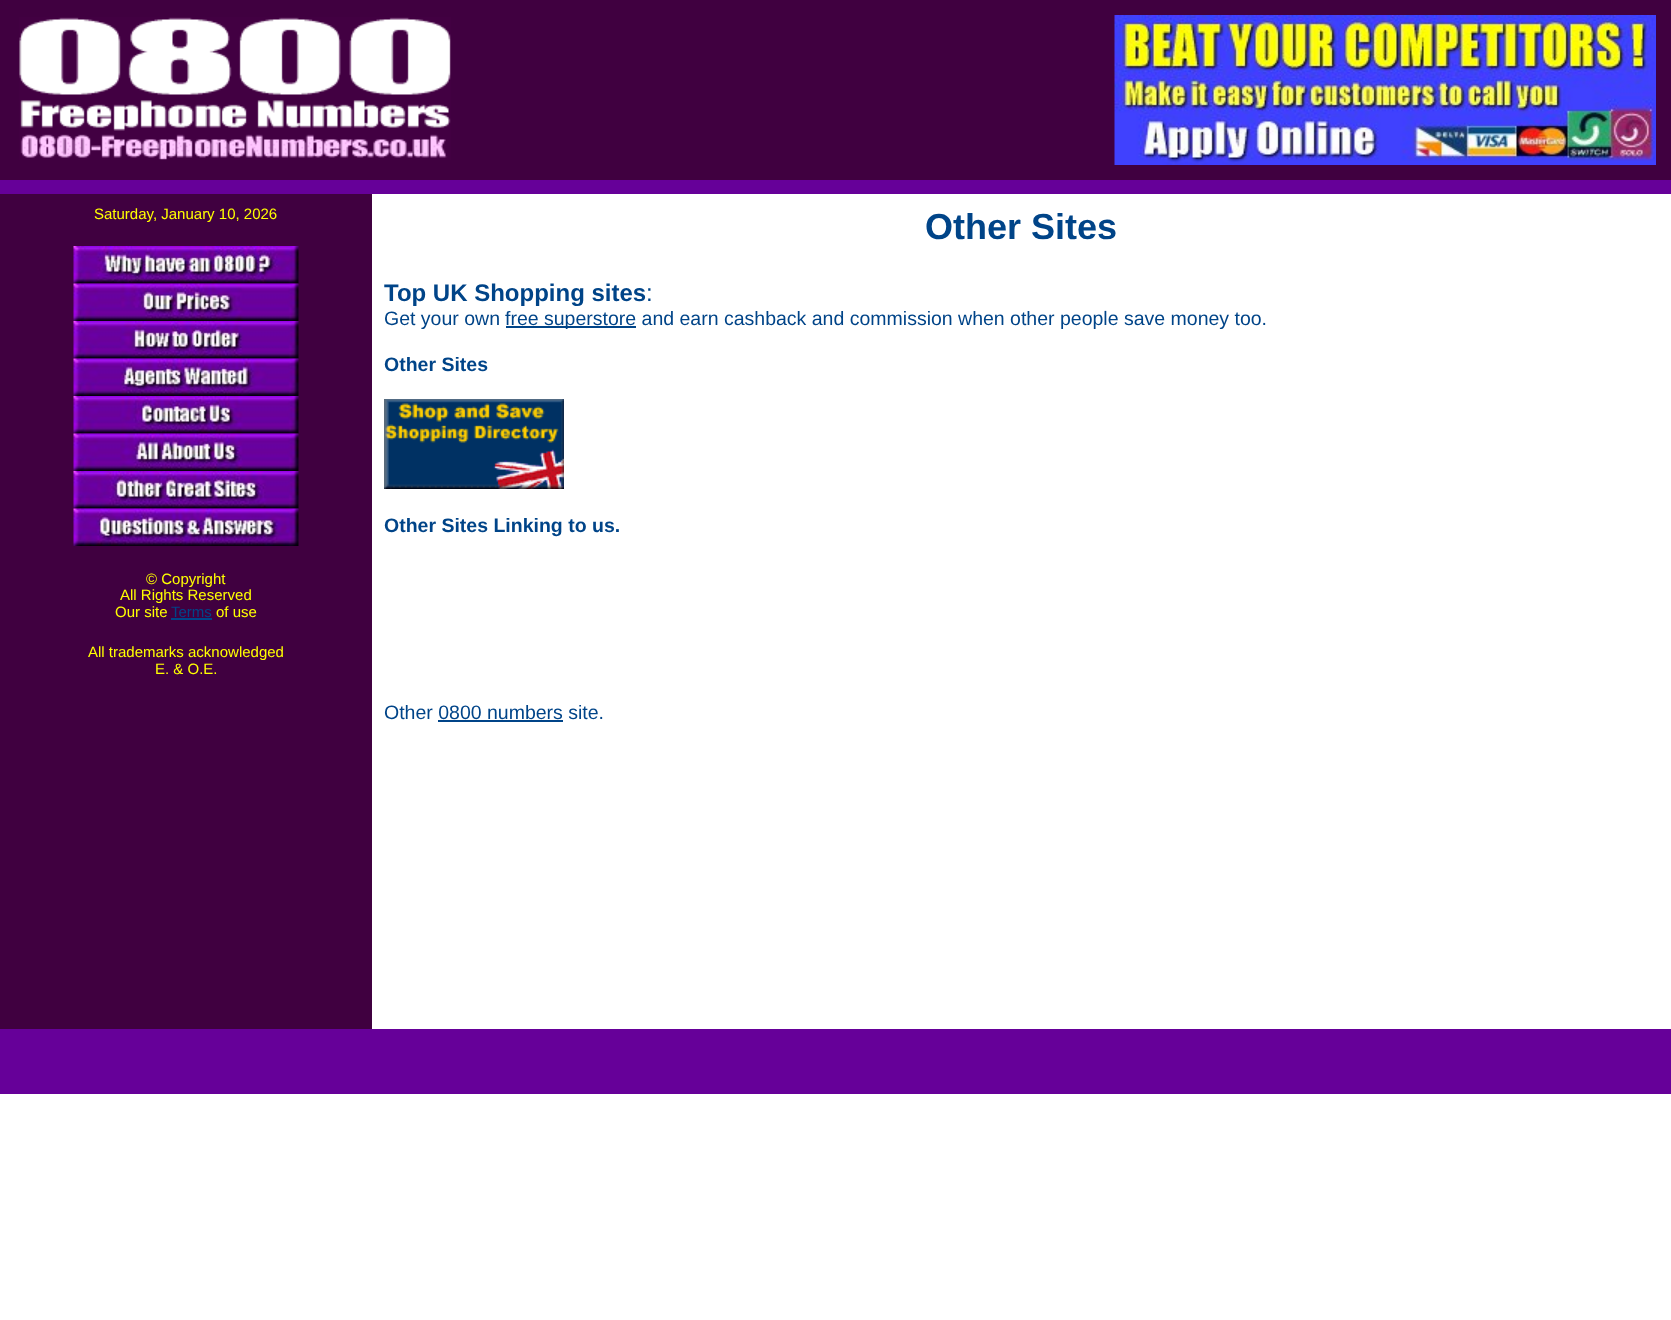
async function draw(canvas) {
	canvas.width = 1671;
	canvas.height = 1320;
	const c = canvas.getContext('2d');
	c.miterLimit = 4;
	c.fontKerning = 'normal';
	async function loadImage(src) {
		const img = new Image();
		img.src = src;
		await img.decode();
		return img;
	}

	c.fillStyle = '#fff';
	c.fillRect(0, 0, 1671, 1320);
	c.fillStyle = '#400040';
	c.fillRect(0, 0, 1671, 180);
	c.drawImage(await loadImage('img1.png'), 19, 17, 432, 143);
	c.drawImage(await loadImage('img2.png'), 1114, 15, 542, 150);
	c.fillStyle = '#609';
	c.fillRect(0, 180, 1671, 14);
	c.fillStyle = '#400040';
	c.fillRect(0, 194, 372, 835);
	c.font = '15px Liberation Sans';
	c.fillStyle = '#ff0';
	c.fillText('Saturday, January 10, 2026', 94, 219);
	c.drawImage(await loadImage('img3.png'), 73, 246, 226, 38);
	c.drawImage(await loadImage('img4.png'), 73, 283, 226, 38);
	c.drawImage(await loadImage('img5.png'), 73, 321, 226, 38);
	c.drawImage(await loadImage('img6.png'), 73, 358, 226, 38);
	c.drawImage(await loadImage('img7.png'), 73, 396, 226, 38);
	c.drawImage(await loadImage('img8.png'), 73, 433, 226, 38);
	c.drawImage(await loadImage('img9.png'), 73, 471, 226, 38);
	c.drawImage(await loadImage('img10.png'), 73, 508, 226, 38);
	for (const [text, x, y] of [
		['© Copyright', 146, 584],
		['All Rights Reserved', 120, 600],
		['Our site', 115, 617],
	]) {
		c.fillText(text, x, y);
	}
	c.fillStyle = '#048';
	c.fillText('Terms', 171, 617);
	c.fillRect(171, 618, 41, 2);
	c.fillStyle = '#ff0';
	for (const [text, x, y] of [
		['of use', 216, 617],
		['All trademarks acknowledged', 88, 657],
		['E. & O.E.', 155, 674],
	]) {
		c.fillText(text, x, y);
	}
	c.font = 'bold 36px Liberation Sans';
	c.fillStyle = '#048';
	c.fillText('Other Sites', 925, 239);
	c.font = 'bold 24px Liberation Sans';
	c.fillText('Top UK Shopping sites', 384, 301);
	c.font = '24px Liberation Sans';
	c.fillText(':', 646, 301);
	c.font = '19.5px Liberation Sans';
	c.fillText('Get your own', 384, 325);
	c.fillRect(506, 326, 130, 2);
	c.fillText('free superstore and earn cashback and commission when other people save money too.', 505, 325);
	c.font = 'bold 19.5px Liberation Sans';
	c.fillText('Other Sites', 384, 371);
	c.drawImage(await loadImage('img11.png'), 384, 399, 180, 90);
	c.fillText('Other Sites Linking to us.', 384, 532);
	c.font = '19.5px Liberation Sans';
	c.fillText('Other 0800 numbers site.', 384, 719);
	c.fillRect(438, 720, 125, 2);
	c.fillStyle = '#609';
	c.fillRect(0, 1029, 1671, 65);
}

draw(document.querySelector('canvas'));
